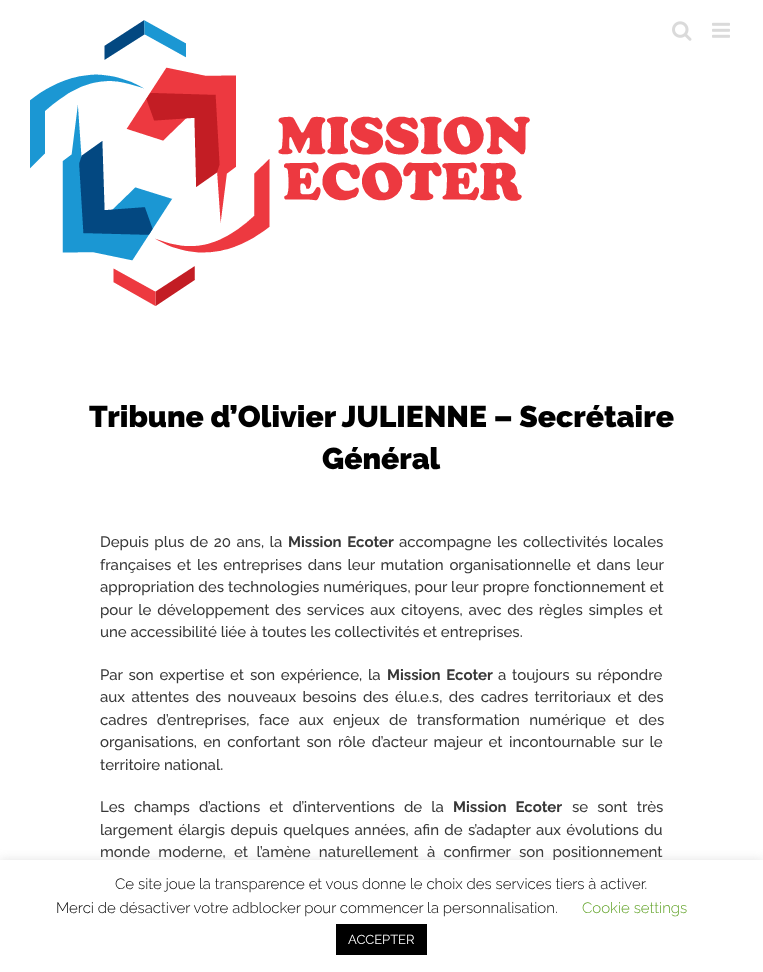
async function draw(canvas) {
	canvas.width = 763;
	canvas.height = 972;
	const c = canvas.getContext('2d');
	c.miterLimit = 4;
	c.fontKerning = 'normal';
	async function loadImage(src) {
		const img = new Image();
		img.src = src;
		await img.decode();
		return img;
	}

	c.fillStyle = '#fff';
	c.fillRect(0, 0, 763, 972);
	c.drawImage(await loadImage('img1.png'), 30, 20, 500, 286);
	c.drawImage(await loadImage('img2.png'), 672, 21, 20, 20);
	c.drawImage(await loadImage('img3.png'), 712, 22, 18, 16);
	c.font = '900 30px Raleway';
	c.fillStyle = '#000';
	c.fillText('Tribune d’Olivier JULIENNE – Secrétaire', 89, 427);
	c.fillText('Général', 322, 469);
	c.wordSpacing = '1.75px';
	c.font = '500 15px Raleway';
	c.fillStyle = '#383838';
	c.fillText('Depuis plus de 20 ans, la', 100, 547);
	c.wordSpacing = '2px';
	c.font = 'bold 15px Raleway';
	c.fillText('Mission Ecoter', 288, 547);
	c.wordSpacing = '1.75px';
	c.font = '500 15px Raleway';
	c.fillText('accompagne les collectivités locales', 399, 547);
	c.wordSpacing = '2px';
	c.fillText('françaises et les entreprises dans leur mutation organisationnelle et dans leur', 100, 570);
	c.wordSpacing = '0.25px';
	c.fillText('appropriation des technologies numériques, pour leur propre fonctionnement et', 100, 592);
	c.wordSpacing = '2px';
	c.fillText('pour le développement des services aux citoyens, avec des règles simples et', 100, 615);
	c.wordSpacing = '0px';
	c.fillText('une accessibilité liée à toutes les collectivités et entreprises.', 100, 637);
	c.wordSpacing = '2px';
	c.fillText('Par son expertise et son expérience, la', 100, 680);
	c.font = 'bold 15px Raleway';
	c.fillText('Mission Ecoter', 387, 680);
	c.font = '500 15px Raleway';
	c.fillText('a toujours su répondre', 498, 680);
	c.wordSpacing = '2.6px';
	c.fillText('aux attentes des nouveaux besoins des élu.e.s, des cadres territoriaux et des', 100, 702);
	c.wordSpacing = '5.5px';
	c.fillText('cadres d’entreprises, face aux enjeux de transformation numérique et des', 100, 725);
	c.wordSpacing = '2.5px';
	c.fillText('organisations, en confortant son rôle d’acteur majeur et incontournable sur le', 100, 747);
	c.wordSpacing = '0px';
	c.fillText('territoire national.', 100, 770);
	c.wordSpacing = '5.25px';
	c.fillText('Les champs d’actions et d’interventions de la', 100, 812);
	c.font = 'bold 15px Raleway';
	c.fillText('Mission Ecoter', 453, 812);
	c.font = '500 15px Raleway';
	c.fillText('se sont très', 572, 812);
	c.wordSpacing = '1.5px';
	c.fillText('largement élargis depuis quelques années, afin de s’adapter aux évolutions du', 100, 835);
	c.wordSpacing = '4.5px';
	c.fillText('monde moderne, et l’amène naturellement à confirmer son positionnement', 100, 857);
	c.fillStyle = '#acabab4d';
	c.filter = 'blur(5px)';
	c.beginPath();
	c.rect(0, 859, 763, 112);
	c.fill();
	c.filter = 'none';
	c.fillStyle = '#fff';
	c.fillRect(0, 860, 763, 112);
	c.wordSpacing = '0px';
	c.font = '300 15px Raleway';
	c.fillStyle = '#000';
	c.fillText('Ce site joue la transparence et vous donne le choix des services tiers à activer.', 115, 889);
	c.fillText('Merci de désactiver votre adblocker pour commencer la personnalisation.', 56, 913);
	c.fillStyle = '#62a329';
	c.fillText('Cookie settings', 582, 913);
	c.fillStyle = '#000';
	c.fillRect(336, 924, 91, 31);
	c.font = '13px Raleway';
	c.fillStyle = '#fff';
	c.fillText('ACCEPTER', 348, 944);
}

draw(document.querySelector('canvas'));
